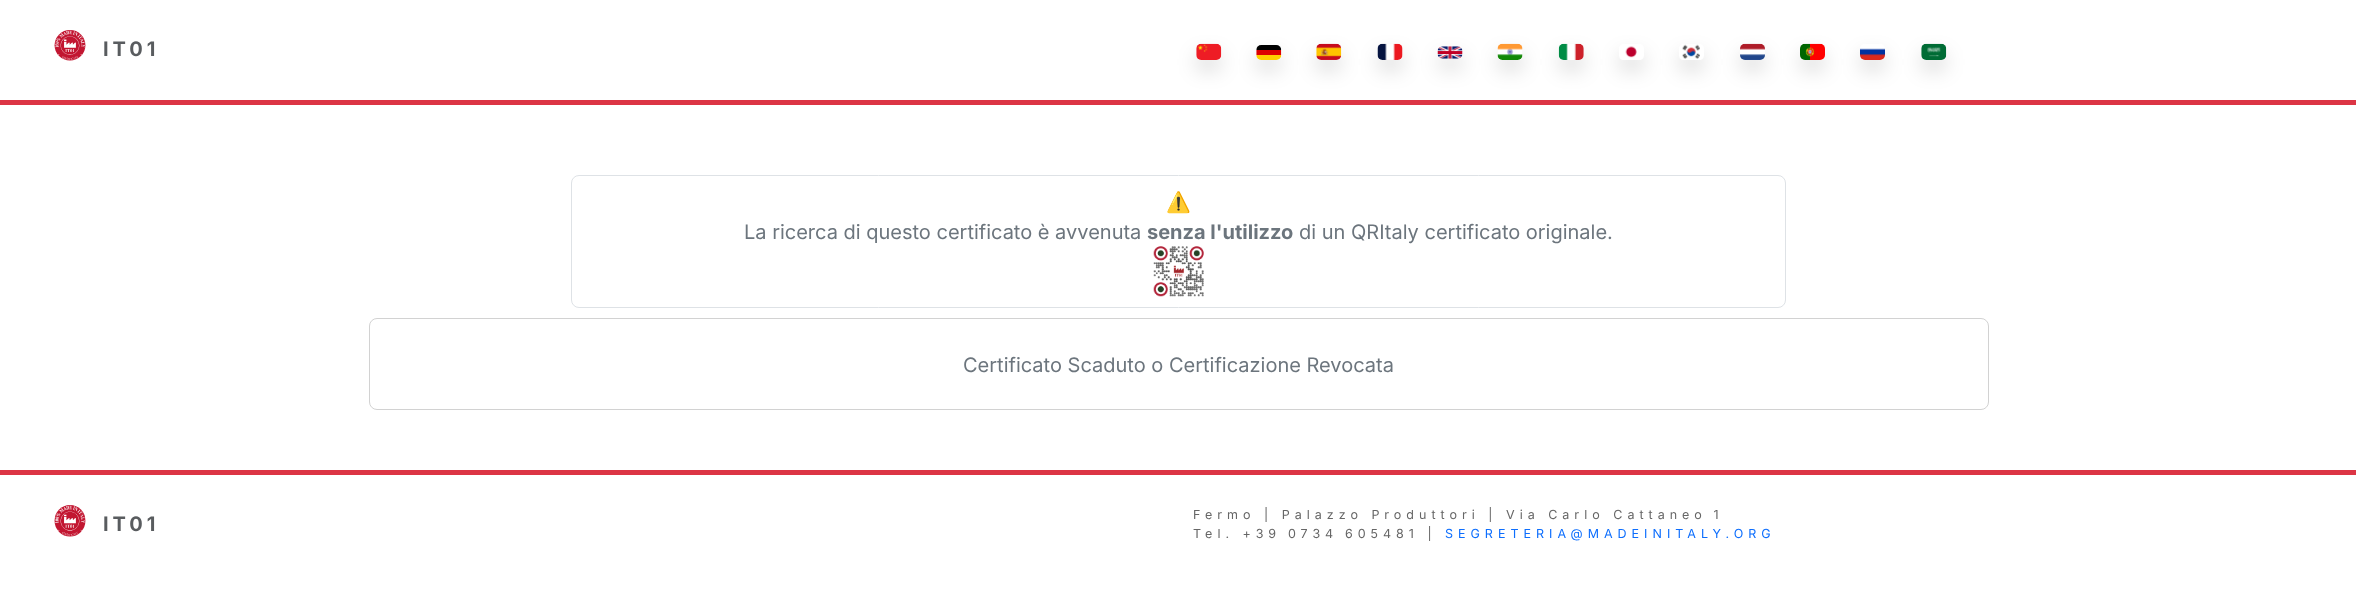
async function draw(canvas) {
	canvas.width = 2356;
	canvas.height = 598;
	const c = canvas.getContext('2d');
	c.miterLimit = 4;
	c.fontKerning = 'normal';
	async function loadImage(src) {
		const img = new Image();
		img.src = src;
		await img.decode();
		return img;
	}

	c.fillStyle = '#fff';
	c.fillRect(0, 0, 2356, 598);
	c.fillStyle = '#dc3545';
	c.fillRect(0, 100, 2356, 5);
	c.drawImage(await loadImage('img1.png'), 54, 30, 32, 31);
	c.letterSpacing = '4px';
	c.font = 'bold 20px Inter';
	c.fillStyle = '#595c5f';
	c.fillText('IT01', 103, 56);
	c.fillStyle = '#00000026';
	c.filter = 'blur(10px)';
	c.beginPath();
	c.roundRect(1196, 54, 25, 16, 5);
	c.fill();
	c.filter = 'none';
	c.drawImage(await loadImage('img2.png'), 1196, 43, 26, 17);
	c.filter = 'blur(10px)';
	c.beginPath();
	c.roundRect(1256, 55, 25, 15, 5);
	c.fill();
	c.filter = 'none';
	c.drawImage(await loadImage('img3.png'), 1256, 45, 26, 15);
	c.filter = 'blur(10px)';
	c.beginPath();
	c.roundRect(1316, 54, 25, 16, 5);
	c.fill();
	c.filter = 'none';
	c.drawImage(await loadImage('img4.png'), 1316, 43, 26, 17);
	c.filter = 'blur(10px)';
	c.beginPath();
	c.roundRect(1378, 54, 25, 16, 5);
	c.fill();
	c.filter = 'none';
	c.drawImage(await loadImage('img5.png'), 1377, 43, 26, 17);
	c.filter = 'blur(10px)';
	c.beginPath();
	c.roundRect(1438, 56, 25, 13, 5);
	c.fill();
	c.filter = 'none';
	c.drawImage(await loadImage('img6.png'), 1437, 46, 26, 13);
	c.filter = 'blur(10px)';
	c.beginPath();
	c.roundRect(1498, 54, 25, 16, 5);
	c.fill();
	c.filter = 'none';
	c.drawImage(await loadImage('img7.png'), 1497, 43, 26, 17);
	c.filter = 'blur(10px)';
	c.beginPath();
	c.roundRect(1559, 54, 25, 16, 5);
	c.fill();
	c.filter = 'none';
	c.drawImage(await loadImage('img8.png'), 1558, 43, 26, 17);
	c.save();
	c.beginPath();
	c.moveTo(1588, 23);
	c.lineTo(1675, 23);
	c.lineTo(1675, 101);
	c.lineTo(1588, 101);
	c.closePath();
	c.moveTo(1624, 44);
	c.lineTo(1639, 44);
	c.bezierCurveTo(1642, 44, 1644, 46, 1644, 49);
	c.lineTo(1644, 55);
	c.bezierCurveTo(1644, 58, 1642, 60, 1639, 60);
	c.lineTo(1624, 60);
	c.bezierCurveTo(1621, 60, 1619, 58, 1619, 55);
	c.lineTo(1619, 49);
	c.bezierCurveTo(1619, 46, 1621, 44, 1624, 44);
	c.closePath();
	c.clip('evenodd');
	c.filter = 'blur(10px)';
	c.beginPath();
	c.roundRect(1619, 54, 25, 16, 5);
	c.fill();
	c.filter = 'none';
	c.restore();
	c.drawImage(await loadImage('img9.png'), 1625, 46, 12, 12);
	c.save();
	c.beginPath();
	c.moveTo(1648, 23);
	c.lineTo(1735, 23);
	c.lineTo(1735, 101);
	c.lineTo(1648, 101);
	c.closePath();
	c.moveTo(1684, 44);
	c.lineTo(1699, 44);
	c.bezierCurveTo(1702, 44, 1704, 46, 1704, 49);
	c.lineTo(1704, 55);
	c.bezierCurveTo(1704, 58, 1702, 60, 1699, 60);
	c.lineTo(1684, 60);
	c.bezierCurveTo(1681, 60, 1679, 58, 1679, 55);
	c.lineTo(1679, 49);
	c.bezierCurveTo(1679, 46, 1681, 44, 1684, 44);
	c.closePath();
	c.clip('evenodd');
	c.filter = 'blur(10px)';
	c.beginPath();
	c.roundRect(1679, 54, 25, 16, 5);
	c.fill();
	c.filter = 'none';
	c.restore();
	c.drawImage(await loadImage('img10.png'), 1682, 44, 18, 15);
	c.filter = 'blur(10px)';
	c.beginPath();
	c.roundRect(1740, 54, 25, 16, 5);
	c.fill();
	c.filter = 'none';
	c.drawImage(await loadImage('img11.png'), 1740, 43, 25, 17);
	c.filter = 'blur(10px)';
	c.beginPath();
	c.roundRect(1800, 54, 25, 16, 5);
	c.fill();
	c.filter = 'none';
	c.drawImage(await loadImage('img12.png'), 1800, 43, 25, 17);
	c.save();
	c.beginPath();
	c.moveTo(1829, 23);
	c.lineTo(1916, 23);
	c.lineTo(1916, 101);
	c.lineTo(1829, 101);
	c.closePath();
	c.moveTo(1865, 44);
	c.lineTo(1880, 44);
	c.bezierCurveTo(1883, 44, 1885, 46, 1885, 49);
	c.lineTo(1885, 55);
	c.bezierCurveTo(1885, 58, 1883, 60, 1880, 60);
	c.lineTo(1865, 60);
	c.bezierCurveTo(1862, 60, 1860, 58, 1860, 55);
	c.lineTo(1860, 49);
	c.bezierCurveTo(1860, 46, 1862, 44, 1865, 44);
	c.closePath();
	c.clip('evenodd');
	c.filter = 'blur(10px)';
	c.beginPath();
	c.roundRect(1860, 54, 25, 16, 5);
	c.fill();
	c.filter = 'none';
	c.restore();
	c.drawImage(await loadImage('img13.png'), 1860, 48, 25, 12);
	c.filter = 'blur(10px)';
	c.beginPath();
	c.roundRect(1921, 54, 25, 16, 5);
	c.fill();
	c.filter = 'none';
	c.drawImage(await loadImage('img14.png'), 1921, 43, 26, 17);
	c.beginPath();
	c.roundRect(571.5, 175.5, 1214, 132, 7.5);
	c.strokeStyle = '#dee2e6';
	c.stroke();
	c.letterSpacing = '0px';
	c.font = '20px Noto Color Emoji';
	c.fillStyle = '#6c757d';
	c.fillText('⚠️', 1166, 209);
	c.font = '20px Inter';
	c.fillText('La ricerca di questo certificato è avvenuta', 744, 239);
	c.font = 'bold 20px Inter';
	c.fillText('senza l\'utilizzo', 1147, 239);
	c.font = '20px Inter';
	c.fillText('di un QRItaly certificato originale.', 1299, 239);
	c.drawImage(await loadImage('img15.png'), 1153, 246, 51, 51);
	c.beginPath();
	c.roundRect(369.5, 318.5, 1619, 91, 7.5);
	c.strokeStyle = '#d2d2d2';
	c.stroke();
	c.fillText('Certificato Scaduto o Certificazione Revocata', 963, 372);
	c.fillStyle = '#dc3545';
	c.fillRect(0, 470, 2356, 5);
	c.drawImage(await loadImage('img16.png'), 54, 505, 32, 32);
	c.letterSpacing = '4px';
	c.font = 'bold 20px Inter';
	c.fillStyle = '#595c5f';
	c.fillText('IT01', 103, 531);
	c.letterSpacing = '5px';
	c.font = '12.5px Inter';
	c.fillStyle = '#666';
	c.fillText('Fermo | Palazzo Produttori | Via Carlo Cattaneo 1', 1193, 519);
	c.fillText('Tel. +39 0734 605481 |', 1193, 538);
	c.fillStyle = '#0d6efd';
	c.fillText('SEGRETERIA@MADEINITALY.ORG', 1445, 538);
}

draw(document.querySelector('canvas'));
